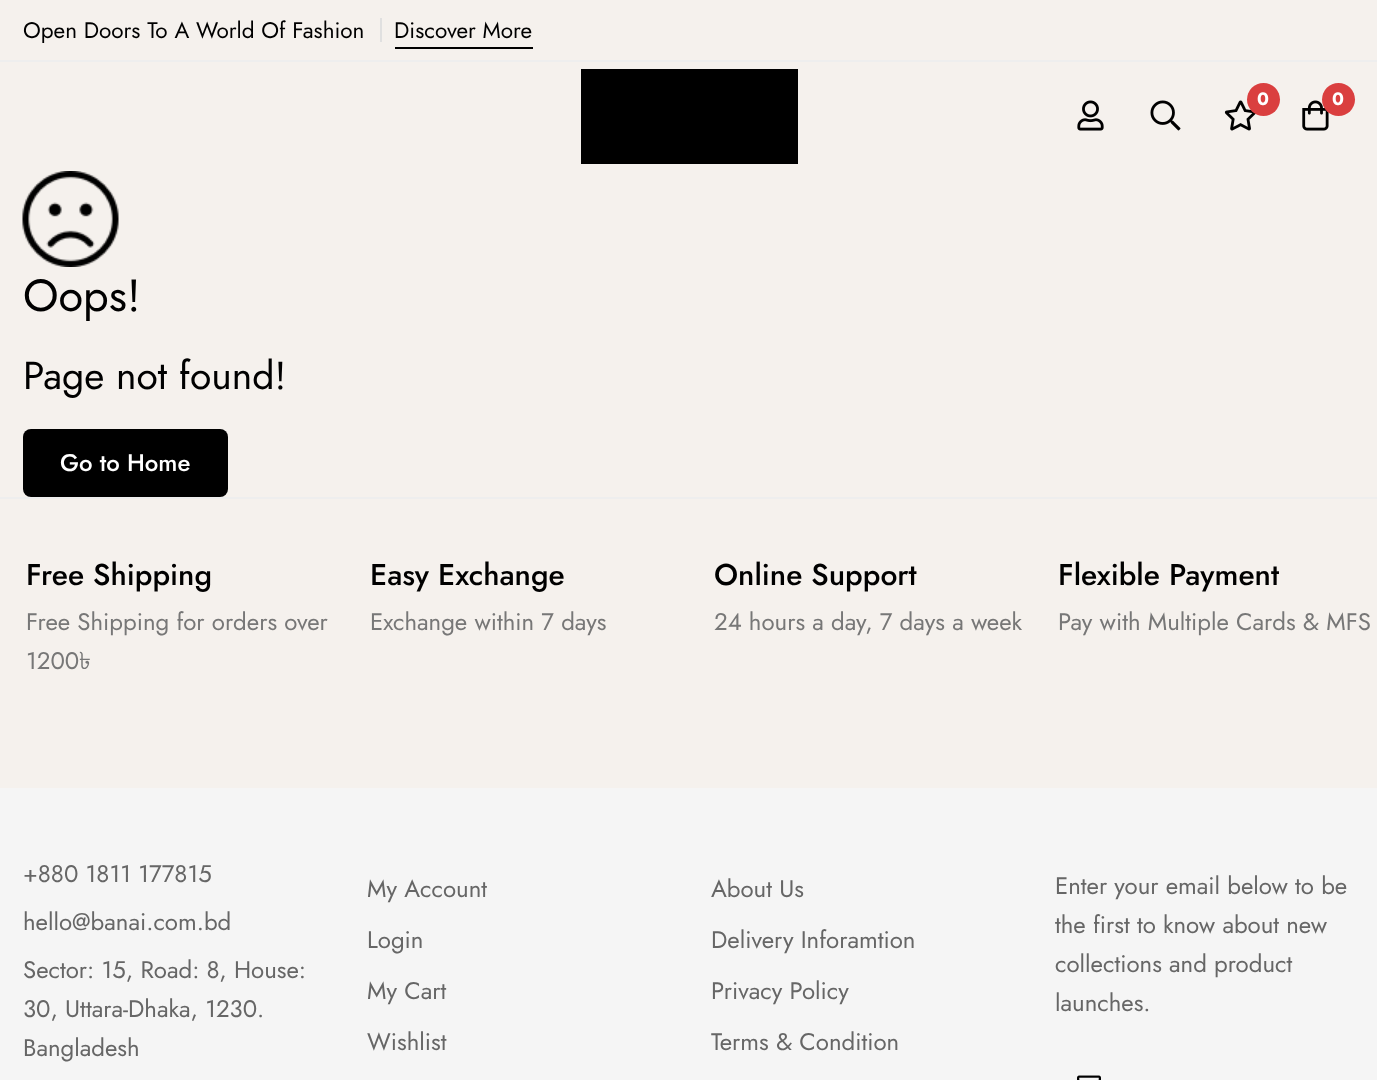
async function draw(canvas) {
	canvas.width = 1377;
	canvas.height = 1080;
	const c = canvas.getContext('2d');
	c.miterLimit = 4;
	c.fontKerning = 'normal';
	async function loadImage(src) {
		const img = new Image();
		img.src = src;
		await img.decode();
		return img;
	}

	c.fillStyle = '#f5f1ed';
	c.fillRect(0, 0, 1377, 1080);
	c.fillStyle = '#eee';
	c.fillRect(0, 60, 1377, 2);
	c.font = '22.5px Jost';
	c.fillStyle = '#000';
	c.fillText('Open Doors To A World Of Fashion', 23, 38);
	c.fillStyle = '#e0e0e0';
	c.fillRect(380, 18, 2, 24);
	c.fillStyle = '#000';
	c.fillText('Discover More', 394, 38);
	c.fillRect(395, 47, 138, 2);
	c.fillRect(581, 69, 217, 95);
	c.drawImage(await loadImage('img1.png'), 1077, 100, 27, 31);
	c.drawImage(await loadImage('img2.png'), 1150, 100, 31, 31);
	c.drawImage(await loadImage('img3.png'), 1224, 100, 32, 31);
	c.fillStyle = '#da3f3f';
	c.beginPath();
	c.arc(1263.5, 99.5, 16.5, 0, 2 * Math.PI);
	c.fill();
	c.font = 'bold 18px Jost';
	c.fillStyle = '#fff';
	c.fillText('0', 1257, 105);
	c.drawImage(await loadImage('img4.png'), 1302, 100, 27, 31);
	c.fillStyle = '#da3f3f';
	c.beginPath();
	c.arc(1338.5, 99.5, 16.5, 0, 2 * Math.PI);
	c.fill();
	c.fillStyle = '#fff';
	c.fillText('0', 1332, 105);
	c.drawImage(await loadImage('img5.png'), 22, 171, 97, 96);
	c.font = '45px Jost';
	c.fillStyle = '#000';
	c.fillText('Oops!', 23, 311);
	c.font = '39px Jost';
	c.fillText('Page not found!', 23, 389);
	c.beginPath();
	c.roundRect(23, 429, 205, 68, 8);
	c.fill();
	c.font = '500 24px Jost';
	c.fillStyle = '#fff';
	c.fillText('Go to Home', 60, 471);
	c.fillStyle = '#eee';
	c.fillRect(0, 497, 1377, 2);
	c.font = '500 30px Jost';
	c.fillStyle = '#000';
	c.fillText('Free Shipping', 26, 585);
	c.font = '24px Jost';
	c.fillStyle = '#777';
	c.fillText('Free Shipping for orders over', 26, 630);
	c.fillText('1200', 26, 669);
	c.font = '24px Lohit Bengali';
	c.fillText('৳', 79, 669);
	c.font = '500 30px Jost';
	c.fillStyle = '#000';
	c.fillText('Easy Exchange', 370, 585);
	c.font = '24px Jost';
	c.fillStyle = '#777';
	c.fillText('Exchange within 7 days', 370, 630);
	c.font = '500 30px Jost';
	c.fillStyle = '#000';
	c.fillText('Online Support', 714, 585);
	c.font = '24px Jost';
	c.fillStyle = '#777';
	c.fillText('24 hours a day, 7 days a week', 714, 630);
	c.font = '500 30px Jost';
	c.fillStyle = '#000';
	c.fillText('Flexible Payment', 1058, 585);
	c.font = '24px Jost';
	c.fillStyle = '#777';
	c.fillText('Pay with Multiple Cards & MFS', 1058, 630);
	c.fillStyle = '#f5f5f5';
	c.fillRect(0, 788, 1377, 292);
	c.fillStyle = '#666';
	for (const [text, x, y] of [
		['+880 1811 177815', 23, 882],
		['hello@banai.com.bd', 23, 930],
		['Sector: 15, Road: 8, House:', 23, 978],
		['30, Uttara-Dhaka, 1230.', 23, 1017],
		['Bangladesh', 23, 1056],
		['My Account', 367, 897],
		['Login', 367, 948],
		['My Cart', 367, 999],
		['Wishlist', 367, 1050],
		['About Us', 711, 897],
		['Delivery Inforamtion', 711, 948],
		['Privacy Policy', 711, 999],
		['Terms & Condition', 711, 1050],
		['Enter your email below to be', 1055, 894],
		['the first to know about new', 1055, 933],
		['collections and product', 1055, 972],
		['launches.', 1055, 1011],
	]) {
		c.fillText(text, x, y);
	}
	c.drawImage(await loadImage('img6.png'), 1077, 1075, 24, 5);
}

draw(document.querySelector('canvas'));
